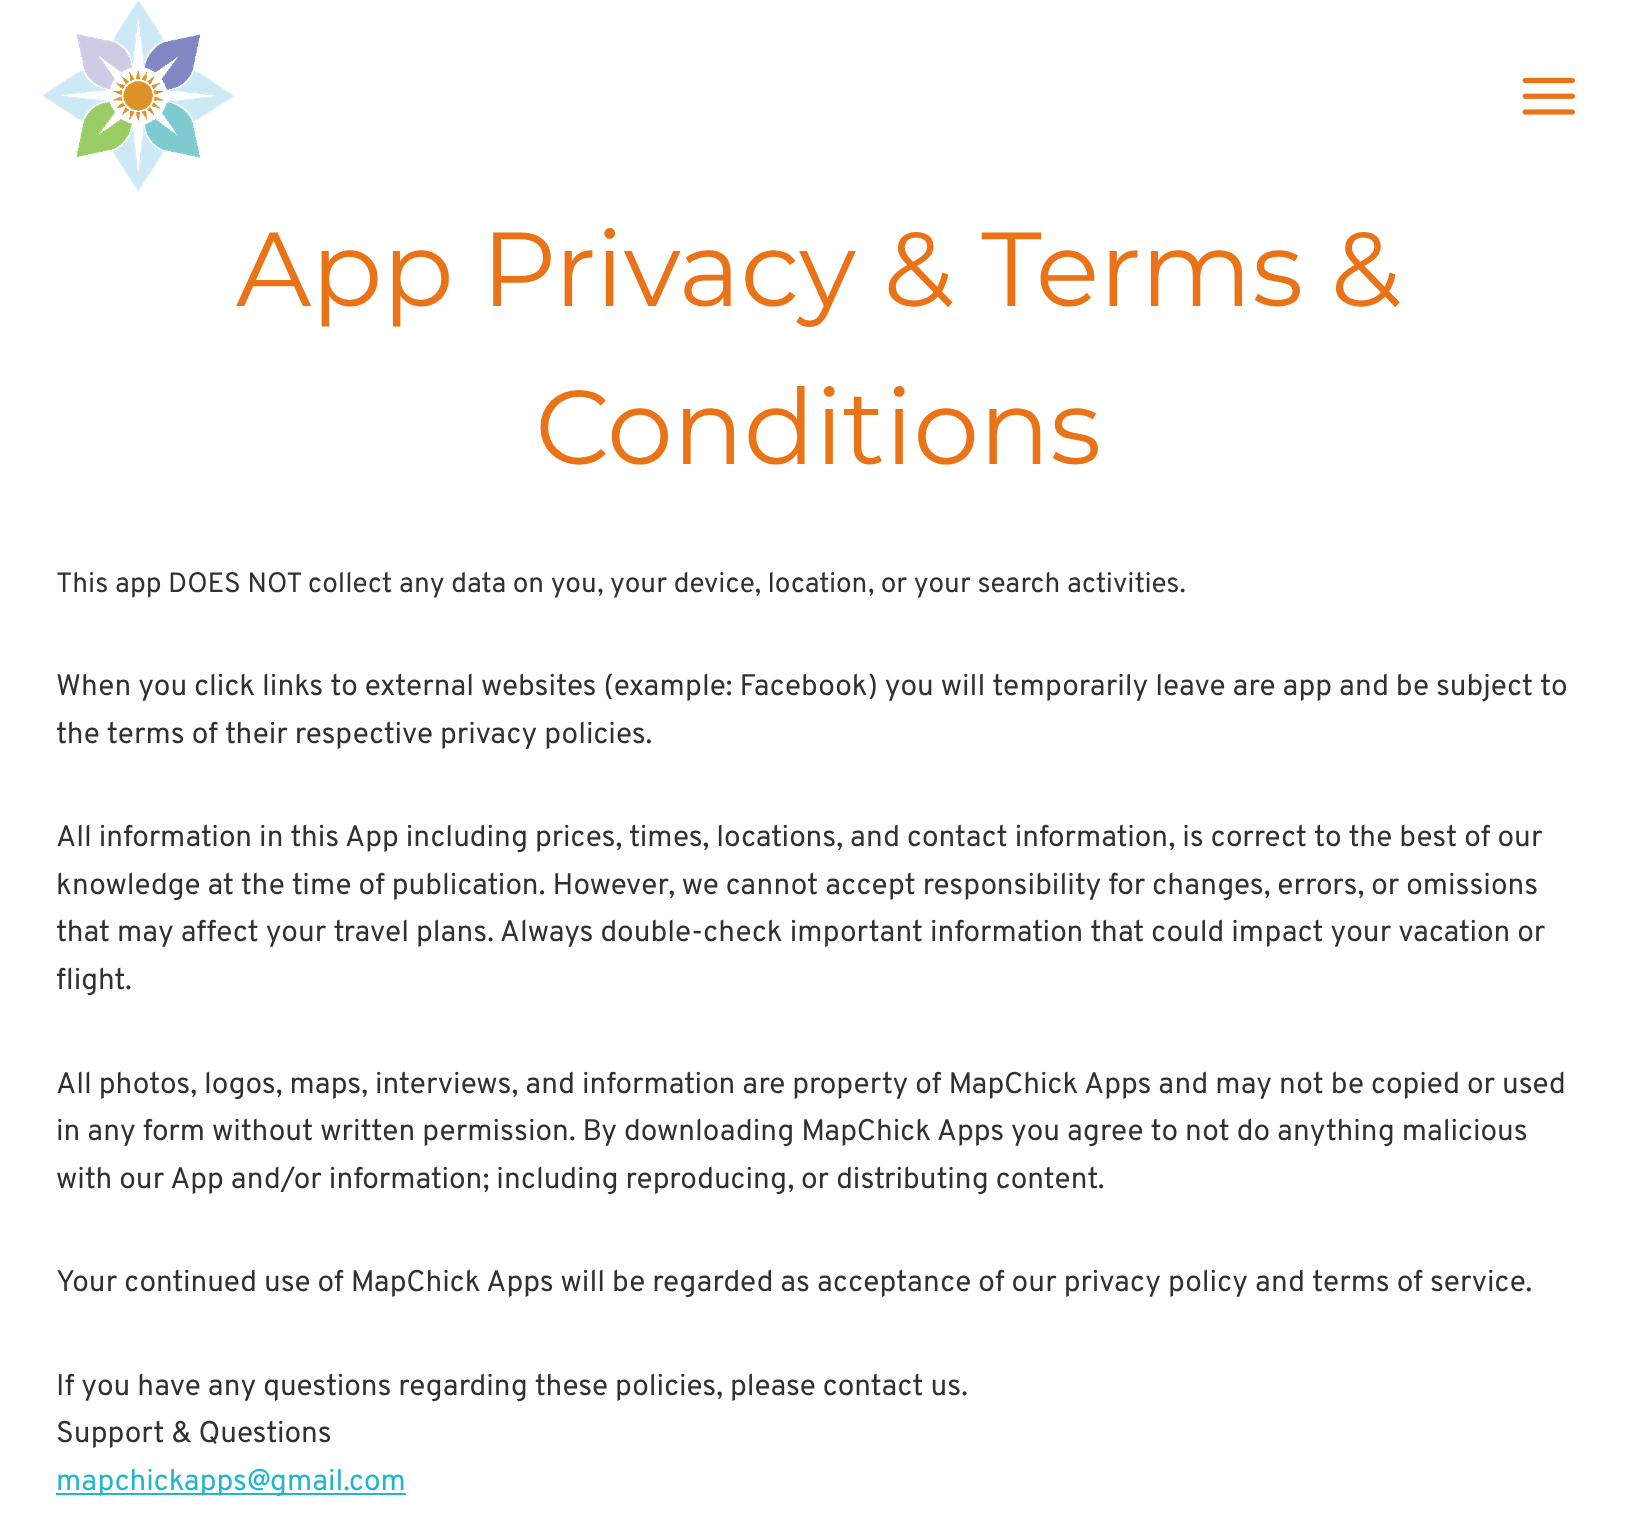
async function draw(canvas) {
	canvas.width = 1636;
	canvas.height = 1514;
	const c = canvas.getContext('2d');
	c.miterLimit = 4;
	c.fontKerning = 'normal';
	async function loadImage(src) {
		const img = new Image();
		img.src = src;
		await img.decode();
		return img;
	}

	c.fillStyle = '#fff';
	c.fillRect(0, 0, 1636, 1514);
	c.drawImage(await loadImage('img1.png'), 42, 0, 192, 191);
	c.drawImage(await loadImage('img2.png'), 1522, 77, 53, 38);
	c.font = '105px Montserrat';
	c.fillStyle = '#ea7217';
	c.fillText('App Privacy & Terms &', 236, 306);
	c.fillText('Conditions', 535, 464);
	c.font = '28px Overpass';
	c.fillStyle = '#313131';
	c.fillText('This app DOES NOT collect any data on you, your device, location, or your search activities.', 56, 592);
	c.font = '29.75px Overpass';
	for (const [text, x, y] of [
		['When you click links to external websites (example: Facebook) you will temporarily leave are app and be subject to', 56, 695],
		['the terms of their respective privacy policies.', 56, 743],
		['All information in this App including prices, times, locations, and contact information, is correct to the best of our', 56, 846],
		['knowledge at the time of publication. However, we cannot accept responsibility for changes, errors, or omissions', 56, 894],
		['that may affect your travel plans. Always double-check important information that could impact your vacation or', 56, 941],
		['flight.', 56, 989],
		['All photos, logos, maps, interviews, and information are property of MapChick Apps and may not be copied or used', 56, 1093],
		['in any form without written permission. By downloading MapChick Apps you agree to not do anything malicious', 56, 1140],
		['with our App and/or information; including reproducing, or distributing content.', 56, 1188],
		['Your continued use of MapChick Apps will be regarded as acceptance of our privacy policy and terms of service.', 56, 1291],
		['If you have any questions regarding these policies, please contact us.', 56, 1395],
		['Support & Questions', 56, 1442],
	]) {
		c.fillText(text, x, y);
	}
	c.fillStyle = '#22b5ce';
	c.fillRect(56, 1493, 350, 2);
	c.fillText('mapchickapps@gmail.com', 56, 1490);
}

draw(document.querySelector('canvas'));
